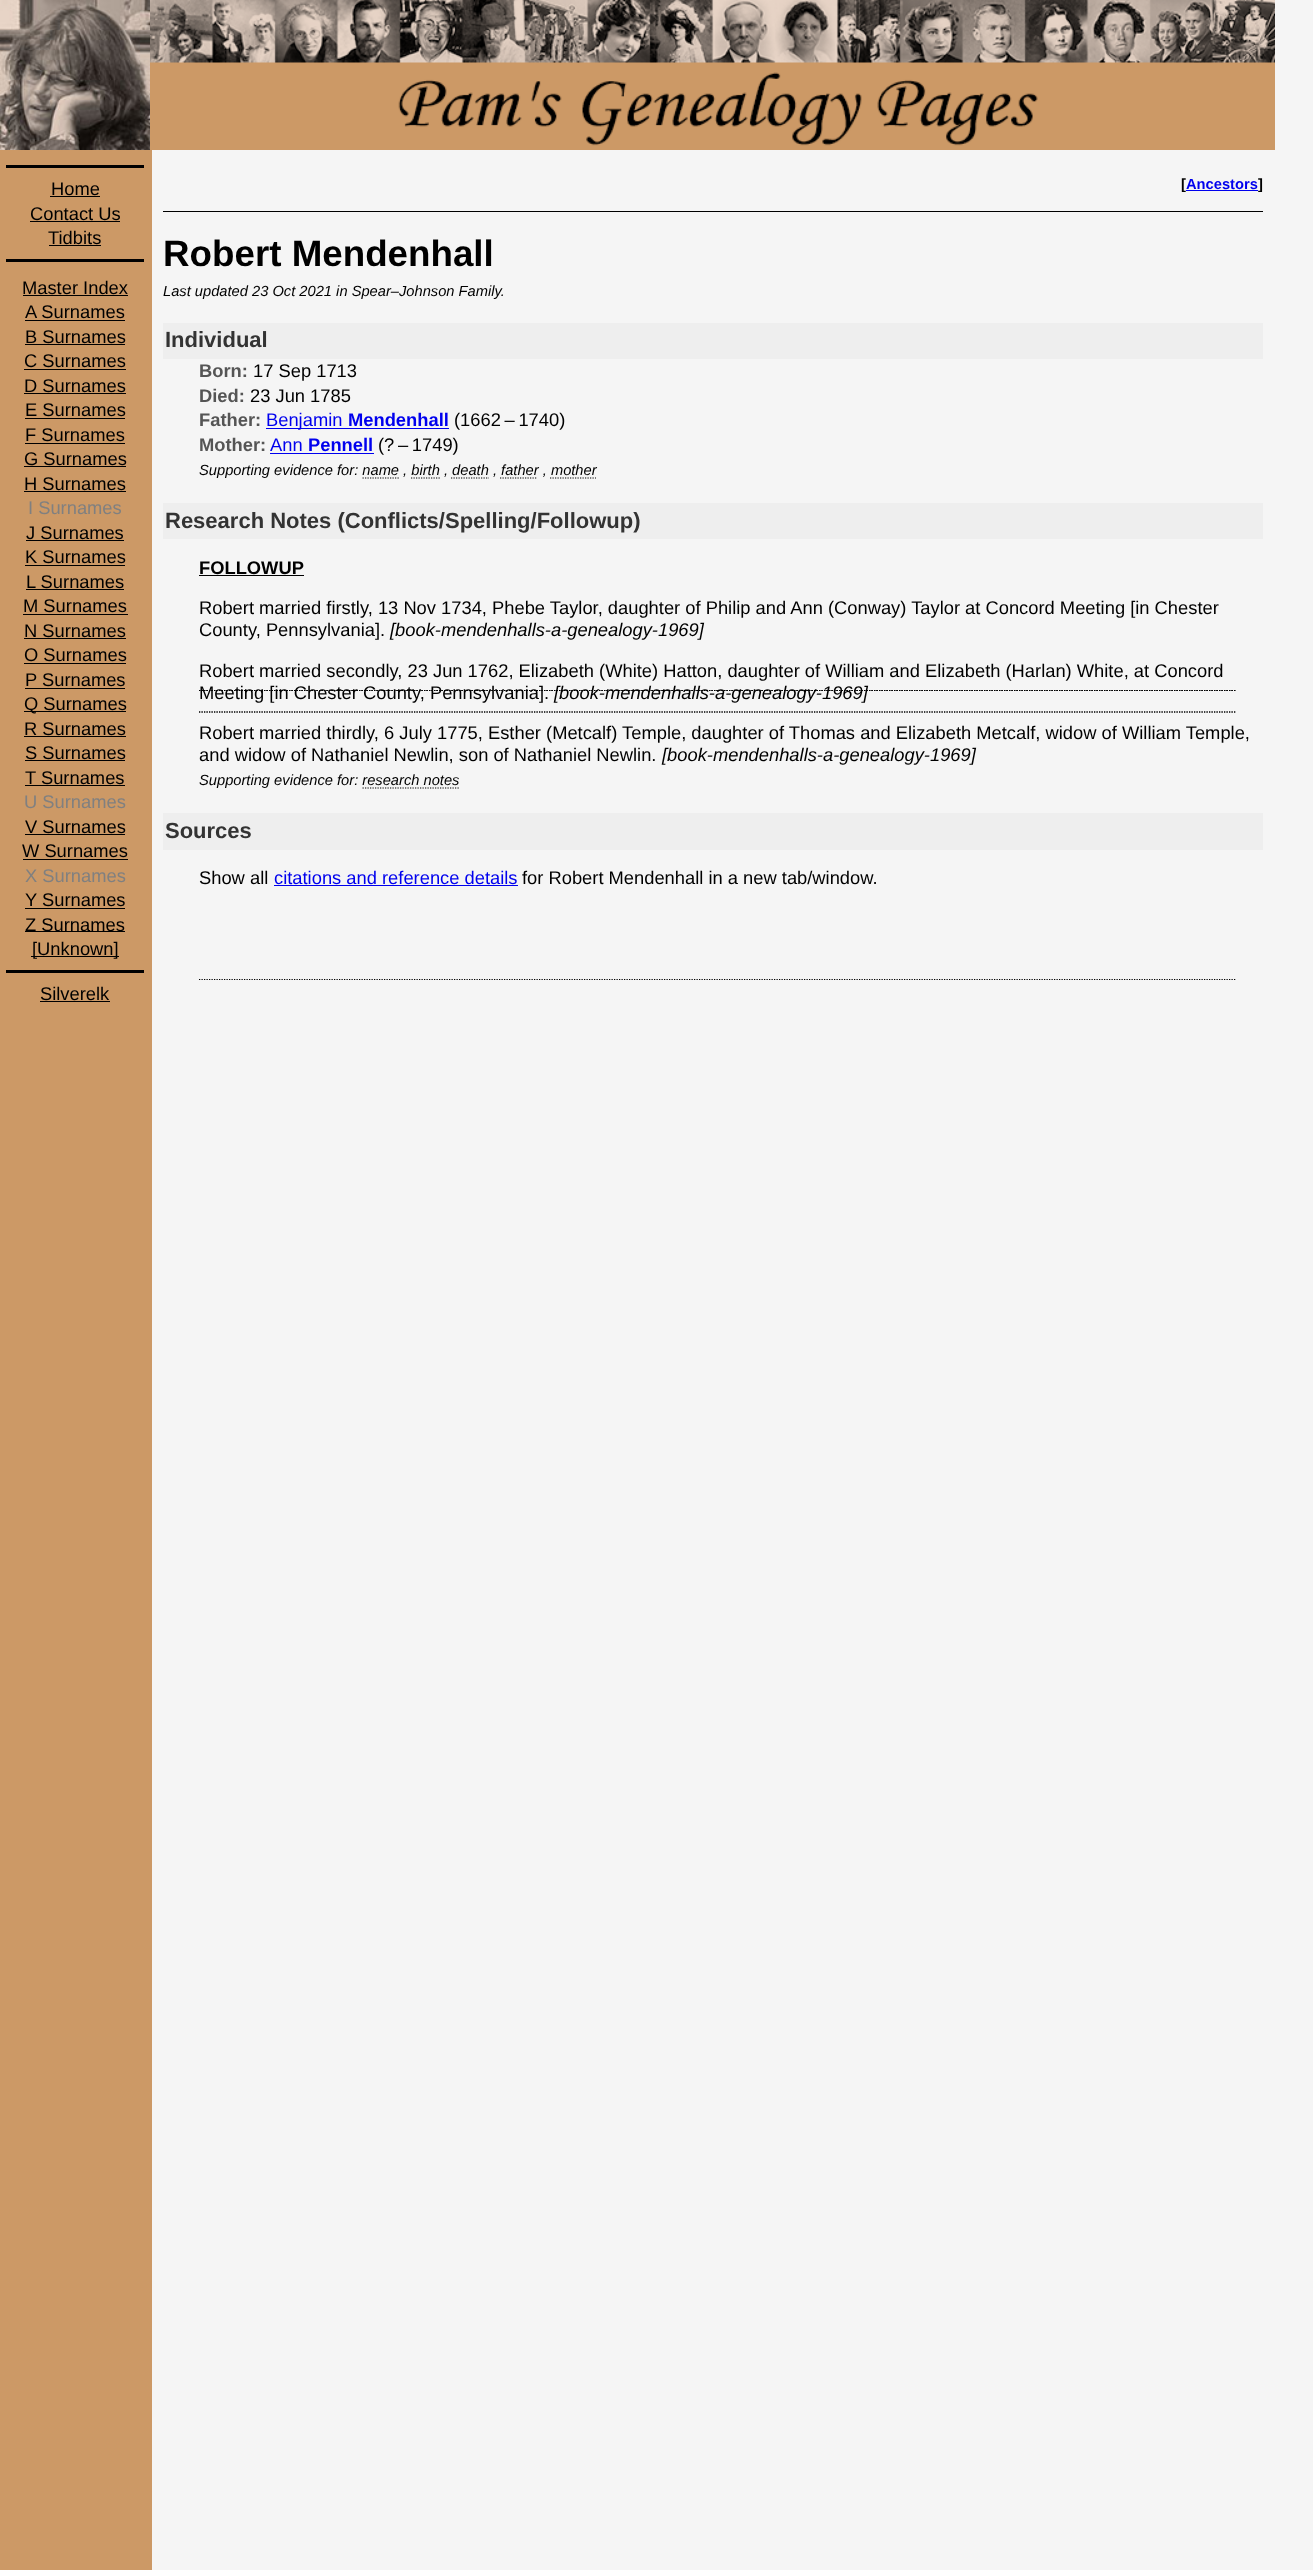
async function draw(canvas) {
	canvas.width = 1313;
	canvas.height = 2570;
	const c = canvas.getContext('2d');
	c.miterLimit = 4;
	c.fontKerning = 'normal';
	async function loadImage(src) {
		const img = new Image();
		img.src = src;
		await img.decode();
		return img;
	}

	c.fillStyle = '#f5f5f5';
	c.fillRect(0, 0, 1313, 2570);
	c.fillStyle = '#c96';
	c.fillRect(0, 150, 152, 2420);
	c.drawImage(await loadImage('img1.png'), 150, 0, 1125, 150);
	c.drawImage(await loadImage('img2.png'), 0, 0, 150, 150);
	c.fillStyle = '#000';
	c.fillRect(6, 165, 138, 3);
	c.font = '18.33px Liberation Sans';
	c.fillText('Home', 51, 195);
	c.fillRect(50, 196, 50, 1);
	c.fillText('Contact Us', 30, 220);
	c.fillRect(30, 221, 90, 1);
	c.fillText('Tidbits', 48, 244);
	c.fillRect(49, 245, 52, 1);
	c.fillRect(6, 259, 138, 3);
	c.fillText('Master Index', 22, 294);
	c.fillRect(23, 295, 105, 1);
	c.fillText('A Surnames', 25, 318);
	c.fillRect(25, 320, 100, 1);
	c.fillText('B Surnames', 25, 343);
	c.fillRect(25, 344, 100, 1);
	c.fillText('C Surnames', 24, 367);
	c.fillRect(24, 369, 102, 1);
	c.fillText('D Surnames', 24, 392);
	c.fillRect(24, 393, 102, 1);
	c.fillText('E Surnames', 25, 416);
	c.fillRect(25, 418, 100, 1);
	c.fillText('F Surnames', 25, 441);
	c.fillRect(25, 443, 100, 1);
	c.fillText('G Surnames', 24, 465);
	c.fillRect(24, 466, 102, 1);
	c.fillText('H Surnames', 24, 490);
	c.fillRect(24, 491, 102, 1);
	c.fillStyle = '#808080';
	c.fillText('I Surnames', 28, 514);
	c.fillStyle = '#000';
	c.fillText('J Surnames', 26, 539);
	c.fillRect(26, 540, 98, 1);
	c.fillText('K Surnames', 25, 563);
	c.fillRect(25, 565, 100, 1);
	c.fillText('L Surnames', 26, 588);
	c.fillRect(26, 589, 98, 1);
	c.fillText('M Surnames', 23, 612);
	c.fillRect(23, 614, 105, 1);
	c.fillText('N Surnames', 24, 637);
	c.fillRect(24, 638, 102, 1);
	c.fillText('O Surnames', 24, 661);
	c.fillRect(24, 663, 102, 1);
	c.fillText('P Surnames', 25, 686);
	c.fillRect(25, 688, 100, 1);
	c.fillRect(24, 711, 102, 1);
	c.fillText('Q Surnames', 24, 710);
	c.fillText('R Surnames', 24, 735);
	c.fillRect(24, 736, 102, 1);
	c.fillText('S Surnames', 25, 759);
	c.fillRect(25, 760, 100, 1);
	c.fillText('T Surnames', 25, 784);
	c.fillRect(25, 785, 100, 1);
	c.fillStyle = '#808080';
	c.fillText('U Surnames', 24, 808);
	c.fillStyle = '#000';
	c.fillText('V Surnames', 25, 833);
	c.fillRect(25, 834, 100, 1);
	c.fillText('W Surnames', 22, 857);
	c.fillRect(23, 859, 105, 1);
	c.fillStyle = '#808080';
	c.fillText('X Surnames', 25, 882);
	c.fillStyle = '#000';
	c.fillText('Y Surnames', 25, 906);
	c.fillRect(25, 908, 100, 1);
	c.fillRect(25, 931, 100, 1);
	c.fillText('Z Surnames', 25, 931);
	c.fillRect(31, 956, 88, 1);
	c.fillText('[Unknown]', 32, 955);
	c.fillRect(6, 970, 138, 3);
	c.fillText('Silverelk', 40, 1000);
	c.fillRect(40, 1001, 70, 1);
	c.fillRect(163, 211, 1100, 1);
	c.font = 'bold 14.7px Liberation Sans';
	c.fillText('[', 1181, 189);
	c.fillStyle = '#00e';
	c.fillText('Ancestors', 1186, 189);
	c.fillRect(1186, 190, 72, 1);
	c.fillStyle = '#000';
	c.fillText(']', 1258, 189);
	c.font = 'bold 36.75px Liberation Sans';
	c.fillText('Robert Mendenhall', 163, 266);
	c.font = 'italic 14.7px Liberation Sans';
	c.fillText('Last updated 23 Oct 2021 in Spear–Johnson Family.', 163, 296);
	c.fillStyle = '#eee';
	c.fillRect(163, 323, 1100, 36);
	c.font = 'bold 22px Liberation Sans';
	c.fillStyle = '#333';
	c.fillText('Individual', 165, 347);
	c.font = 'bold 18.33px Liberation Sans';
	c.fillStyle = '#555';
	c.fillText('Born:', 199, 377);
	c.font = '18.33px Liberation Sans';
	c.fillStyle = '#000';
	c.fillText('17 Sep 1713', 253, 377);
	c.font = 'bold 18.33px Liberation Sans';
	c.fillStyle = '#555';
	c.fillText('Died:', 199, 402);
	c.font = '18.33px Liberation Sans';
	c.fillStyle = '#000';
	c.fillText('23 Jun 1785', 250, 402);
	c.font = 'bold 18.33px Liberation Sans';
	c.fillStyle = '#555';
	c.fillText('Father:', 199, 426);
	c.fillStyle = '#00e';
	c.fillRect(266, 428, 183, 1);
	c.font = '18.33px Liberation Sans';
	c.fillText('Benjamin', 266, 426);
	c.font = 'bold 18.33px Liberation Sans';
	c.fillText('Mendenhall', 348, 426);
	c.font = '18.33px Liberation Sans';
	c.fillStyle = '#000';
	c.fillText('(1662 – 1740)', 454, 426);
	c.font = 'bold 18.33px Liberation Sans';
	c.fillStyle = '#555';
	c.fillText('Mother:', 199, 451);
	c.font = '18.33px Liberation Sans';
	c.fillStyle = '#00e';
	c.fillText('Ann', 270, 451);
	c.fillRect(270, 453, 104, 1);
	c.font = 'bold 18.33px Liberation Sans';
	c.fillText('Pennell', 308, 451);
	c.font = '18.33px Liberation Sans';
	c.fillStyle = '#000';
	c.fillText('(? – 1749)', 378, 451);
	c.font = 'italic 14.7px Liberation Sans';
	c.fillText('Supporting evidence for: name , birth , death , father , mother', 199, 475);
	c.beginPath();
	c.moveTo(362.5, 478);
	c.lineTo(399, 478);
	c.strokeStyle = '#000';
	c.lineWidth = 1.2;
	c.setLineDash([1.25, 1.25]);
	c.stroke();
	c.beginPath();
	c.moveTo(199, 690.5);
	c.lineTo(1236, 690.5);
	c.stroke();
	c.beginPath();
	c.moveTo(411, 478);
	c.lineTo(440, 478);
	c.stroke();
	c.beginPath();
	c.moveTo(199, 690.5);
	c.lineTo(1236, 690.5);
	c.stroke();
	c.beginPath();
	c.moveTo(451, 478);
	c.lineTo(489, 478);
	c.stroke();
	c.beginPath();
	c.moveTo(199, 690.5);
	c.lineTo(1236, 690.5);
	c.stroke();
	c.beginPath();
	c.moveTo(500, 478);
	c.lineTo(537.5, 478);
	c.stroke();
	c.beginPath();
	c.moveTo(199, 712);
	c.lineTo(1236, 712);
	c.stroke();
	c.beginPath();
	c.moveTo(550, 478);
	c.lineTo(596, 478);
	c.stroke();
	c.beginPath();
	c.moveTo(199, 712);
	c.lineTo(1236, 712);
	c.stroke();
	c.fillStyle = '#eee';
	c.fillRect(163, 503, 1100, 36);
	c.font = 'bold 22px Liberation Sans';
	c.fillStyle = '#333';
	c.fillText('Research Notes (Conflicts/Spelling/Followup)', 165, 528);
	c.font = 'bold 18.33px Liberation Sans';
	c.fillStyle = '#000';
	c.fillText('FOLLOWUP', 199, 574);
	c.fillRect(199, 575, 105, 1);
	c.font = '18.33px Liberation Sans';
	c.fillText('Robert married firstly, 13 Nov 1734, Phebe Taylor, daughter of Philip and Ann (Conway) Taylor at Concord Meeting [in Chester', 199, 614);
	c.fillText('County, Pennsylvania].', 199, 636);
	c.font = 'italic 18.33px Liberation Sans';
	c.fillText('[book-mendenhalls-a-genealogy-1969]', 390, 636);
	c.font = '18.33px Liberation Sans';
	c.fillText('Robert married secondly, 23 Jun 1762, Elizabeth (White) Hatton, daughter of William and Elizabeth (Harlan) White, at Concord', 199, 677);
	c.fillText('Meeting [in Chester County, Pennsylvania].', 199, 699);
	c.font = 'italic 18.33px Liberation Sans';
	c.fillText('[book-mendenhalls-a-genealogy-1969]', 554, 699);
	c.font = '18.33px Liberation Sans';
	c.fillText('Robert married thirdly, 6 July 1775, Esther (Metcalf) Temple, daughter of Thomas and Elizabeth Metcalf, widow of William Temple,', 199, 739);
	c.fillText('and widow of Nathaniel Newlin, son of Nathaniel Newlin.', 199, 761);
	c.font = 'italic 18.33px Liberation Sans';
	c.fillText('[book-mendenhalls-a-genealogy-1969]', 662, 761);
	c.font = 'italic 14.7px Liberation Sans';
	c.fillText('Supporting evidence for: research notes', 199, 785);
	c.beginPath();
	c.moveTo(362.5, 788);
	c.lineTo(459, 788);
	c.stroke();
	c.beginPath();
	c.moveTo(199, 979.5);
	c.lineTo(1236, 979.5);
	c.stroke();
	c.fillStyle = '#eee';
	c.fillRect(163, 813, 1100, 37);
	c.font = 'bold 22px Liberation Sans';
	c.fillStyle = '#333';
	c.fillText('Sources', 165, 838);
	c.font = '18.33px Liberation Sans';
	c.fillStyle = '#000';
	c.fillText('Show all', 199, 884);
	c.fillStyle = '#00e';
	c.fillText('citations and reference details', 274, 884);
	c.fillRect(274, 885, 244, 1);
	c.fillStyle = '#000';
	c.fillText('for Robert Mendenhall in a new tab/window.', 522, 884);
}

draw(document.querySelector('canvas'));
